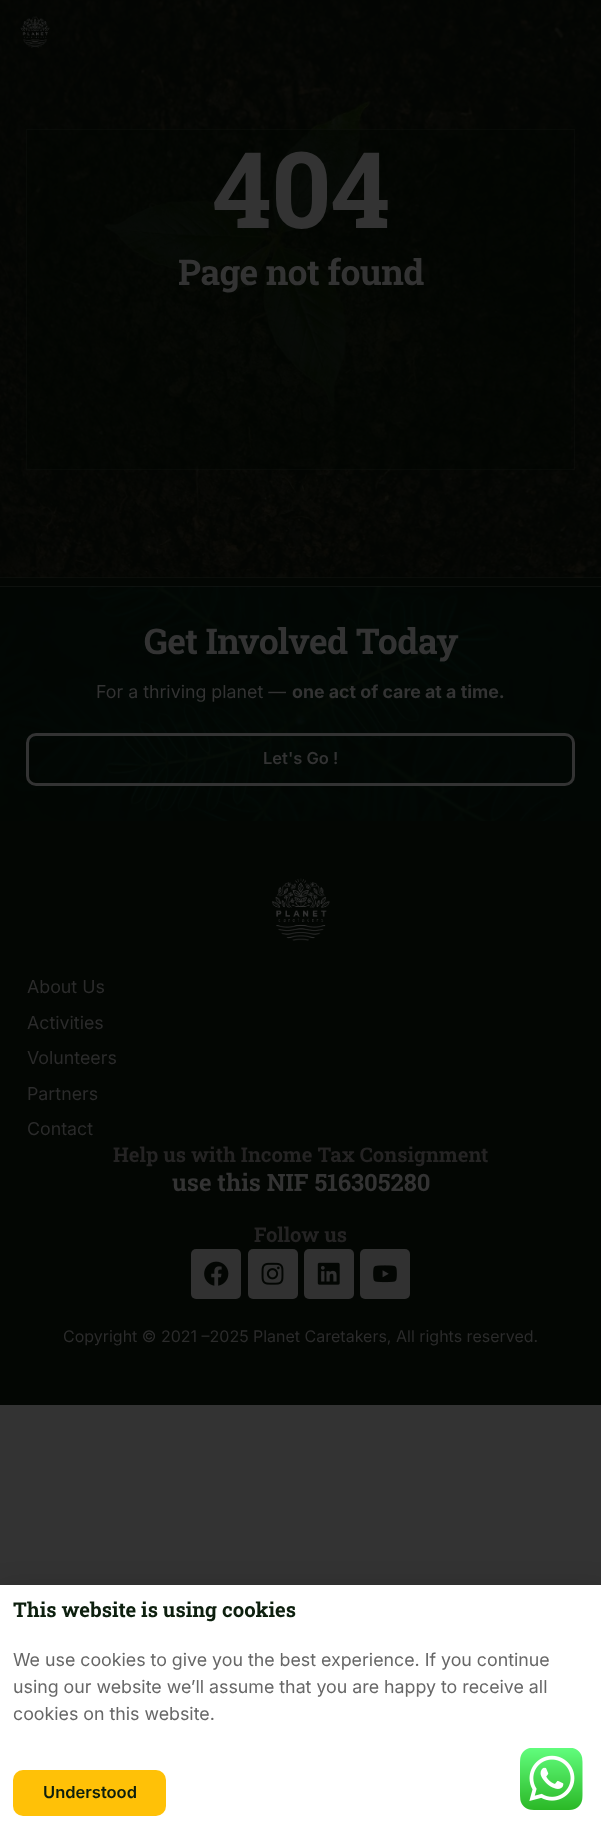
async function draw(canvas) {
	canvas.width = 601;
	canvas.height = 1828;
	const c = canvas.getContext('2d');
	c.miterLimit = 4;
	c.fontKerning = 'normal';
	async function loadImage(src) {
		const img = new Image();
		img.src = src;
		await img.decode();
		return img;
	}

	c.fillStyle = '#333';
	c.fillRect(0, 0, 601, 1828);
	c.fillStyle = '#111411';
	c.fillRect(0, 577, 601, 1);
	c.drawImage(await loadImage('img2.png'), 0, 0, 601, 578);
	c.drawImage(await loadImage('img1.png'), 20, 16, 30, 32);
	c.fillStyle = '#030603';
	c.fillRect(0, 578, 601, 8);
	c.fillStyle = '#0306037a';
	c.fillRect(26, 129, 545, 341);
	c.strokeStyle = '#3333331f';
	c.strokeRect(26.5, 129.5, 548, 340);
	c.letterSpacing = '-1px';
	c.font = 'bold 106px Roboto Slab';
	c.fillStyle = '#333';
	c.fillText('404', 212, 228);
	c.letterSpacing = '-0.6px';
	c.font = 'bold 35.5px Roboto Slab';
	c.fillText('Page not found', 178, 285);
	c.drawImage(await loadImage('img3.png'), 0, 586, 601, 235);
	c.fillText('Get Involved Today', 144, 654);
	c.letterSpacing = '0px';
	c.font = '17.8px Inter';
	c.fillText('For a thriving planet —', 96, 698);
	c.font = 'bold 17.8px Inter';
	c.fillText('one act of care at a time.', 292, 698);
	c.beginPath();
	c.roundRect(27.5, 734.5, 546, 50, 8.5);
	c.strokeStyle = '#333';
	c.lineWidth = 3;
	c.stroke();
	c.font = '600 16.5px Inter';
	c.fillText('Let\'s Go !', 263, 764);
	c.fillStyle = '#030603';
	c.fillRect(0, 821, 601, 584);
	c.drawImage(await loadImage('img4.png'), 271, 878, 59, 63);
	c.font = '17.8px Inter';
	c.fillStyle = '#2b2b2b';
	for (const [text, x, y] of [
		['About Us', 27, 993],
		['Activities', 27, 1029],
		['Volunteers', 27, 1064],
		['Partners', 27, 1100],
		['Contact', 27, 1135],
	]) {
		c.fillText(text, x, y);
	}
	c.font = 'bold 20.3px Roboto Slab';
	c.fillStyle = '#242323';
	c.fillText('Help us with Income Tax Consignment', 113, 1162);
	c.font = 'bold 23.9px Roboto Slab';
	c.fillStyle = '#333';
	c.fillText('use this NIF 516305280', 172, 1191);
	c.font = 'bold 20.3px Roboto Slab';
	c.fillStyle = '#242323';
	c.fillText('Follow us', 254, 1242);
	c.fillStyle = '#313131';
	c.beginPath();
	c.roundRect(191, 1249, 50, 50, 5);
	c.fill();
	c.drawImage(await loadImage('img5.png'), 204, 1261, 25, 25);
	c.beginPath();
	c.roundRect(248, 1249, 50, 50, 5);
	c.fill();
	c.drawImage(await loadImage('img6.png'), 261, 1262, 23, 23);
	c.beginPath();
	c.roundRect(304, 1249, 50, 50, 5);
	c.fill();
	c.drawImage(await loadImage('img7.png'), 317, 1262, 23, 23);
	c.beginPath();
	c.roundRect(360, 1249, 50, 50, 5);
	c.fill();
	c.drawImage(await loadImage('img8.png'), 373, 1265, 24, 18);
	c.font = '16px Inter';
	c.fillStyle = '#2b2b2b';
	c.fillText('Copyright © 2021 –2025', 63, 1342);
	c.fillText('Planet Caretakers, All rights reserved.', 253, 1342);
	c.fillStyle = '#00000033';
	c.filter = 'blur(14.5px)';
	c.beginPath();
	c.rect(-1, 1591, 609, 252);
	c.fill();
	c.filter = 'none';
	c.fillStyle = '#fff';
	c.fillRect(0, 1585, 601, 243);
	c.font = 'bold 20.3px Roboto Slab';
	c.fillStyle = '#0d1f0e';
	c.fillText('This website is using cookies', 13, 1617);
	c.font = '17.8px Inter';
	c.fillStyle = '#676767';
	for (const [text, x, y] of [
		['We use cookies to give you the best experience. If you continue', 13, 1666],
		['using our website we’ll assume that you are happy to receive all', 13, 1693],
		['cookies on this website.', 13, 1720],
	]) {
		c.fillText(text, x, y);
	}
	c.fillStyle = '#ffc107';
	c.beginPath();
	c.roundRect(13, 1770, 153, 46, 10);
	c.fill();
	c.font = '600 16.5px Inter';
	c.fillStyle = '#0d1f0e';
	c.fillText('Understood', 43, 1798);
	c.drawImage(await loadImage('img9.png'), 520, 1748, 63, 62);
}

draw(document.querySelector('canvas'));
